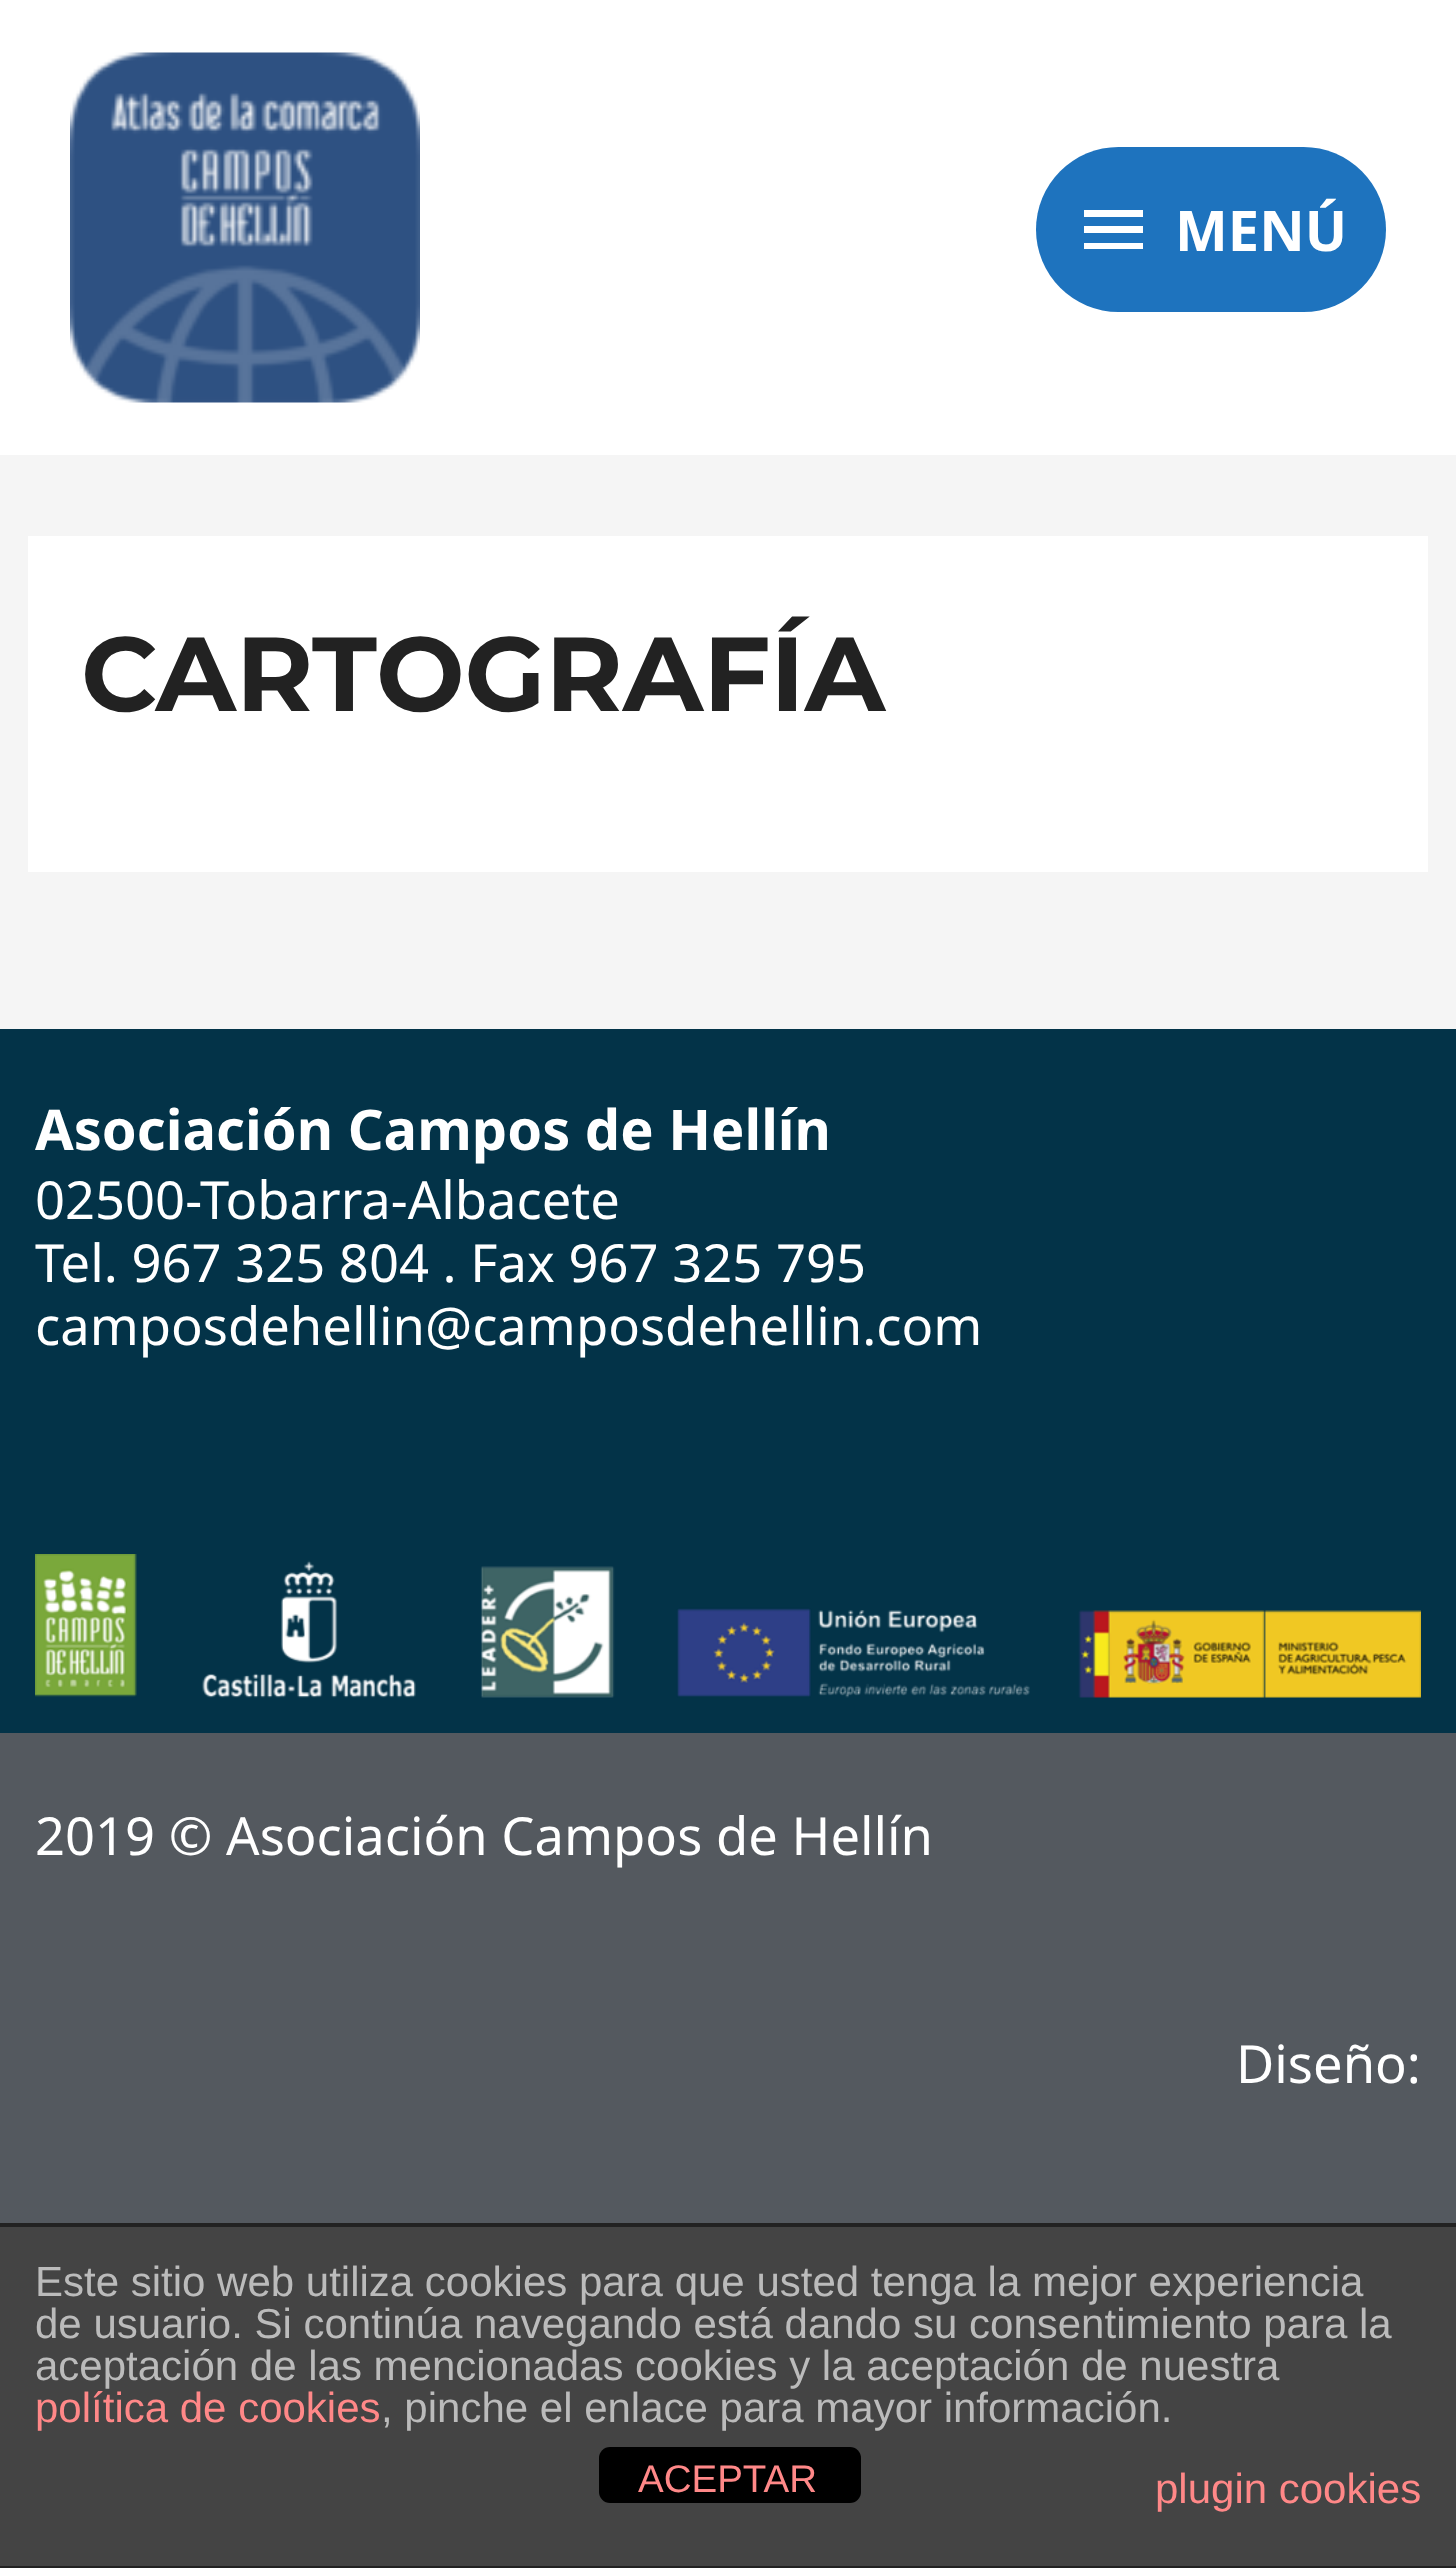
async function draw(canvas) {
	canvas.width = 1456;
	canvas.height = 2568;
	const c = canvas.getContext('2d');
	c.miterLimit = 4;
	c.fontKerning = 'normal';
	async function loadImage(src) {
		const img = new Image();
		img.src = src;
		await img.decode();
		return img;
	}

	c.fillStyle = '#f5f5f5';
	c.fillRect(0, 0, 1456, 2568);
	c.fillStyle = '#fff';
	c.fillRect(0, 0, 1456, 455);
	c.drawImage(await loadImage('img1.png'), 70, 52, 350, 351);
	c.fillStyle = '#1e73be';
	c.beginPath();
	c.roundRect(1036, 147, 350, 165, 82.5);
	c.fill();
	c.fillStyle = '#fff';
	c.beginPath();
	c.moveTo(1084, 210);
	c.lineTo(1143, 210);
	c.lineTo(1143, 217);
	c.lineTo(1084, 217);
	c.closePath();
	c.moveTo(1084, 233);
	c.lineTo(1084, 226);
	c.lineTo(1143, 226);
	c.lineTo(1143, 233);
	c.closePath();
	c.moveTo(1084, 249);
	c.lineTo(1084, 243);
	c.lineTo(1143, 243);
	c.lineTo(1143, 249);
	c.closePath();
	c.fill();
	c.font = 'bold 56px Noto Sans';
	c.fillText('MENÚ', 1175, 251);
	c.fillRect(28, 536, 1400, 336);
	c.font = '100 105px Montserrat';
	c.fillStyle = '#222';
	c.fillText('CARTOGRAFÍA', 81, 711);
	c.fillStyle = '#033348';
	c.fillRect(0, 1029, 1456, 704);
	c.font = 'bold 56px Noto Sans';
	c.fillStyle = '#fff';
	c.fillText('Asociación Campos de Hellín', 35, 1150);
	c.font = '52.5px Noto Sans';
	for (const [text, x, y] of [
		['02500-Tobarra-Albacete', 35, 1219],
		['Tel. 967 325 804 . Fax 967 325 795', 35, 1282],
		['camposdehellin@camposdehellin.com', 35, 1345],
	]) {
		c.fillText(text, x, y);
	}
	c.drawImage(await loadImage('img2.png'), 35, 1554, 1386, 144);
	c.fillStyle = '#54595f';
	c.fillRect(0, 1733, 1456, 490);
	c.fillStyle = '#fff';
	c.fillText('2019 © Asociación Campos de Hellín', 35, 1855);
	c.fillText('Diseño:', 1236, 2083);
	for (const [x, y, w, h, color] of [
		[0, 2227, 1456, 339, '#444'],
		[0, 2223, 1456, 4, '#222'],
		[0, 2566, 1456, 2, '#222'],
	]) {
		c.fillStyle = color;
		c.fillRect(x, y, w, h);
	}
	c.font = '42px Liberation Sans';
	c.fillStyle = '#bbb';
	for (const [text, x, y] of [
		['Este sitio web utiliza cookies para que usted tenga la mejor experiencia', 35, 2296],
		['de usuario. Si continúa navegando está dando su consentimiento para la', 35, 2338],
		['aceptación de las mencionadas cookies y la aceptación de nuestra', 35, 2380],
	]) {
		c.fillText(text, x, y);
	}
	c.fillStyle = '#f88';
	c.fillText('política de cookies', 35, 2422);
	c.fillStyle = '#bbb';
	c.fillText(', pinche el enlace para mayor información.', 381, 2422);
	c.fillStyle = '#f88';
	c.fillText('plugin cookies', 1155, 2503);
	c.fillStyle = '#000';
	c.beginPath();
	c.roundRect(599, 2447, 262, 56, 11);
	c.fill();
	c.font = '38.5px Liberation Sans';
	c.fillStyle = '#f88';
	c.fillText('ACEPTAR', 638, 2492);
}

draw(document.querySelector('canvas'));
